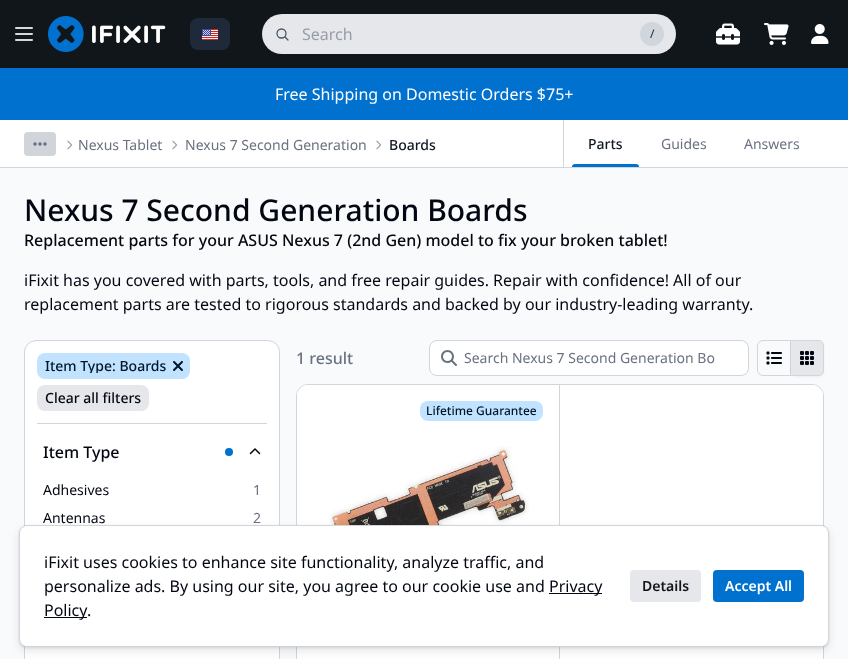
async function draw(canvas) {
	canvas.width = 848;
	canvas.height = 659;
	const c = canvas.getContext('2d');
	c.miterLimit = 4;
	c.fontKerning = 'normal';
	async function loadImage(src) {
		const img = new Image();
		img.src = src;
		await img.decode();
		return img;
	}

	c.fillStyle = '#f9fafb';
	c.fillRect(0, 0, 848, 659);
	c.fillStyle = '#11161a';
	c.fillRect(0, 0, 848, 68);
	c.drawImage(await loadImage('img1.png'), 15, 27, 18, 14);
	c.drawImage(await loadImage('img2.png'), 48, 16, 118, 36);
	c.fillStyle = '#1e2939';
	c.beginPath();
	c.roundRect(190, 18, 40, 32, 8);
	c.fill();
	c.drawImage(await loadImage('img3.png'), 202, 29, 16, 11);
	c.fillStyle = '#e5e7eb';
	c.beginPath();
	c.roundRect(262, 14, 414, 40, 20);
	c.fill();
	c.beginPath();
	c.arc(281.5, 33.5, 4.5, 0, 2 * Math.PI);
	c.strokeStyle = '#4a5565';
	c.lineWidth = 1.3;
	c.stroke();
	c.beginPath();
	c.moveTo(285, 37);
	c.lineTo(288, 40);
	c.lineCap = 'round';
	c.stroke();
	c.font = '16px Noto Sans';
	c.fillStyle = '#989ea8';
	c.fillText('Search', 302, 40);
	c.fillStyle = '#d1d5dc';
	c.beginPath();
	c.arc(652, 34, 12, 0, 2 * Math.PI);
	c.fill();
	c.font = '12px Noto Sans';
	c.fillStyle = '#1e2939';
	c.fillText('/', 650, 38);
	c.drawImage(await loadImage('img4.png'), 716, 23, 24, 22);
	c.drawImage(await loadImage('img5.png'), 764, 23, 25, 22);
	c.drawImage(await loadImage('img6.png'), 811, 24, 18, 20);
	c.fillStyle = '#0071ce';
	c.fillRect(0, 68, 848, 52);
	c.font = '16px Noto Sans';
	c.fillStyle = '#fff';
	c.fillText('Free Shipping on Domestic Orders $75+', 275, 100);
	c.fillRect(0, 120, 848, 47);
	c.fillStyle = '#d1d5dc';
	c.fillRect(0, 167, 848, 1);
	c.fillStyle = '#d1d5db';
	c.beginPath();
	c.roundRect(24, 132, 32, 24, 4);
	c.fill();
	c.drawImage(await loadImage('img7.png'), 33, 142, 14, 4);
	c.drawImage(await loadImage('img8.png'), 67, 140, 6, 10);
	c.font = '14px Noto Sans';
	c.fillStyle = '#6a7282';
	c.fillText('Nexus Tablet', 78, 150);
	c.drawImage(await loadImage('img8.png'), 172, 140, 6, 10);
	c.fillText('Nexus 7 Second Generation', 185, 150);
	c.drawImage(await loadImage('img8.png'), 376, 140, 6, 10);
	c.font = '500 14px Noto Sans';
	c.fillStyle = '#111827';
	c.fillText('Boards', 389, 150);
	c.fillStyle = '#d1d5dc';
	c.fillRect(563, 120, 1, 47);
	c.fillStyle = '#111827';
	c.fillText('Parts', 588, 149);
	c.fillStyle = '#0071ce';
	c.beginPath();
	c.roundRect(572, 164, 67, 3, [3, 3, 0, 0]);
	c.fill();
	c.font = '14px Noto Sans';
	c.fillStyle = '#6a7282';
	c.fillText('Guides', 661, 149);
	c.fillText('Answers', 744, 149);
	c.font = '500 30px Noto Sans';
	c.fillStyle = '#030712';
	c.fillText('Nexus 7 Second Generation Boards', 24, 221);
	c.font = '500 16px Noto Sans';
	c.fillText('Replacement parts for your ASUS Nexus 7 (2nd Gen) model to fix your broken tablet!', 24, 246);
	c.font = '16px Noto Sans';
	c.fillText('iFixit has you covered with parts, tools, and free repair guides. Repair with confidence! All of our', 24, 286);
	c.fillText('replacement parts are tested to rigorous standards and backed by our industry-leading warranty.', 24, 310);
	c.fillStyle = '#fff';
	c.beginPath();
	c.roundRect(24.5, 340.5, 255, 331, 11.5);
	c.fill();
	c.strokeStyle = '#d1d5dc';
	c.lineWidth = 1;
	c.stroke();
	c.fillStyle = '#d1d5dc';
	c.fillRect(37, 423, 230, 1);
	c.fillStyle = '#c2e3ff';
	c.beginPath();
	c.roundRect(37, 353, 153, 26, 8);
	c.fill();
	c.save();
	c.beginPath();
	c.rect(45, 359, 121, 14);
	c.clip();
	c.font = '500 14px Noto Sans';
	c.fillStyle = '#001629';
	c.fillText('Item Type', 45, 371);
	c.restore();
	c.font = '500 14px Noto Sans';
	c.fillStyle = '#001629';
	c.fillText(': Boards', 112, 371);
	c.drawImage(await loadImage('img9.png'), 173, 361, 10, 10);
	c.fillStyle = '#e5e7eb';
	c.beginPath();
	c.roundRect(37, 385, 112, 26, 8);
	c.fill();
	c.fillStyle = '#030712';
	c.fillText('Clear all filters', 45, 403);
	c.font = '500 16px Noto Sans';
	c.fillText('Item Type', 43, 458);
	c.fillStyle = '#0071ce';
	c.beginPath();
	c.arc(229, 452, 4, 0, 2 * Math.PI);
	c.fill();
	c.drawImage(await loadImage('img10.png'), 249, 448, 12, 7);
	c.font = '14px Noto Sans';
	c.fillStyle = '#030712';
	c.fillText('Adhesives', 43, 495);
	c.fillStyle = '#6a7282';
	c.fillText('1', 253, 495);
	c.fillStyle = '#030712';
	c.fillText('Antennas', 43, 523);
	c.fillStyle = '#6a7282';
	c.fillText('2', 253, 523);
	c.font = '500 16px Noto Sans';
	c.fillText('1 result', 296, 364);
	c.fillStyle = '#fff';
	c.beginPath();
	c.roundRect(429.5, 340.5, 319, 35, 7.5);
	c.fill();
	c.stroke();
	c.drawImage(await loadImage('img11.png'), 441, 350, 16, 16);
	c.font = '14px Noto Sans';
	c.fillStyle = '#6a7282';
	c.fillText('Search Nexus 7 Second Generation Bo', 464, 363);
	c.beginPath();
	c.roundRect(757.5, 340.5, 33, 35, [5.5, 0, 0, 5.5]);
	c.stroke();
	c.drawImage(await loadImage('img12.png'), 766, 351, 16, 14);
	c.fillStyle = '#0000000d';
	c.filter = 'blur(1px)';
	c.beginPath();
	c.roundRect(791, 341, 33, 36, 6);
	c.fill();
	c.filter = 'none';
	c.fillStyle = '#e5e7eb';
	c.beginPath();
	c.roundRect(791, 341, 32, 34, [0, 5, 5, 0]);
	c.fill();
	c.fillStyle = '#d1d5dc';
	c.beginPath();
	c.moveTo(791, 340);
	c.lineTo(818, 340);
	c.bezierCurveTo(821.5, 340, 824, 342.5, 824, 346);
	c.lineTo(824, 370);
	c.bezierCurveTo(824, 373.5, 821.5, 376, 818, 376);
	c.lineTo(791, 376);
	c.closePath();
	c.moveTo(791, 341);
	c.lineTo(818, 341);
	c.bezierCurveTo(821, 341, 823, 343, 823, 346);
	c.lineTo(823, 370);
	c.bezierCurveTo(823, 373, 821, 375, 818, 375);
	c.lineTo(791, 375);
	c.closePath();
	c.fill('evenodd');
	c.drawImage(await loadImage('img13.png'), 800, 351, 14, 14);
	c.beginPath();
	c.roundRect(296.5, 384.5, 527, 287, 11.5);
	c.stroke();
	c.fillStyle = '#fff';
	c.beginPath();
	c.roundRect(297, 385, 526, 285, 11);
	c.fill();
	c.fillStyle = '#d1d5dc';
	c.fillRect(559, 385, 1, 274);
	c.fillStyle = '#c2e3ff';
	c.beginPath();
	c.roundRect(420, 401, 123, 20, 8);
	c.fill();
	c.font = '500 12px Noto Sans';
	c.fillStyle = '#001629';
	c.fillText('Lifetime Guarantee', 426, 415);
	c.drawImage(await loadImage('img14.png'), 329, 446, 200, 79);
	c.fillStyle = '#11161a1a';
	c.filter = 'blur(4px)';
	c.beginPath();
	c.roundRect(19, 529, 810, 122, 8);
	c.fill();
	c.filter = 'none';
	c.filter = 'blur(1px)';
	c.beginPath();
	c.roundRect(19, 526, 810, 122, 8);
	c.fill();
	c.filter = 'none';
	c.fillStyle = '#fff';
	c.beginPath();
	c.roundRect(19.5, 525.5, 809, 121, 7.5);
	c.fill();
	c.strokeStyle = '#d1d5db';
	c.stroke();
	c.font = '16px Noto Sans';
	c.fillStyle = '#030712';
	c.fillText('iFixit uses cookies to enhance site functionality, analyze traffic, and', 44, 568);
	c.fillText('personalize ads. By using our site, you agree to our cookie use and', 44, 592);
	c.fillRect(549, 593, 53, 1);
	c.fillText('Privacy', 549, 592);
	c.fillRect(44, 617, 43, 1);
	c.fillText('Policy', 44, 616);
	c.fillText('.', 87, 616);
	c.fillStyle = '#e5e7eb';
	c.beginPath();
	c.roundRect(630, 570, 71, 32, 4);
	c.fill();
	c.font = '600 14px Noto Sans';
	c.fillStyle = '#11161a';
	c.fillText('Details', 642, 591);
	c.fillStyle = '#0071ce';
	c.beginPath();
	c.roundRect(713, 570, 91, 32, 4);
	c.fill();
	c.fillStyle = '#fff';
	c.fillText('Accept All', 725, 591);
}

draw(document.querySelector('canvas'));
